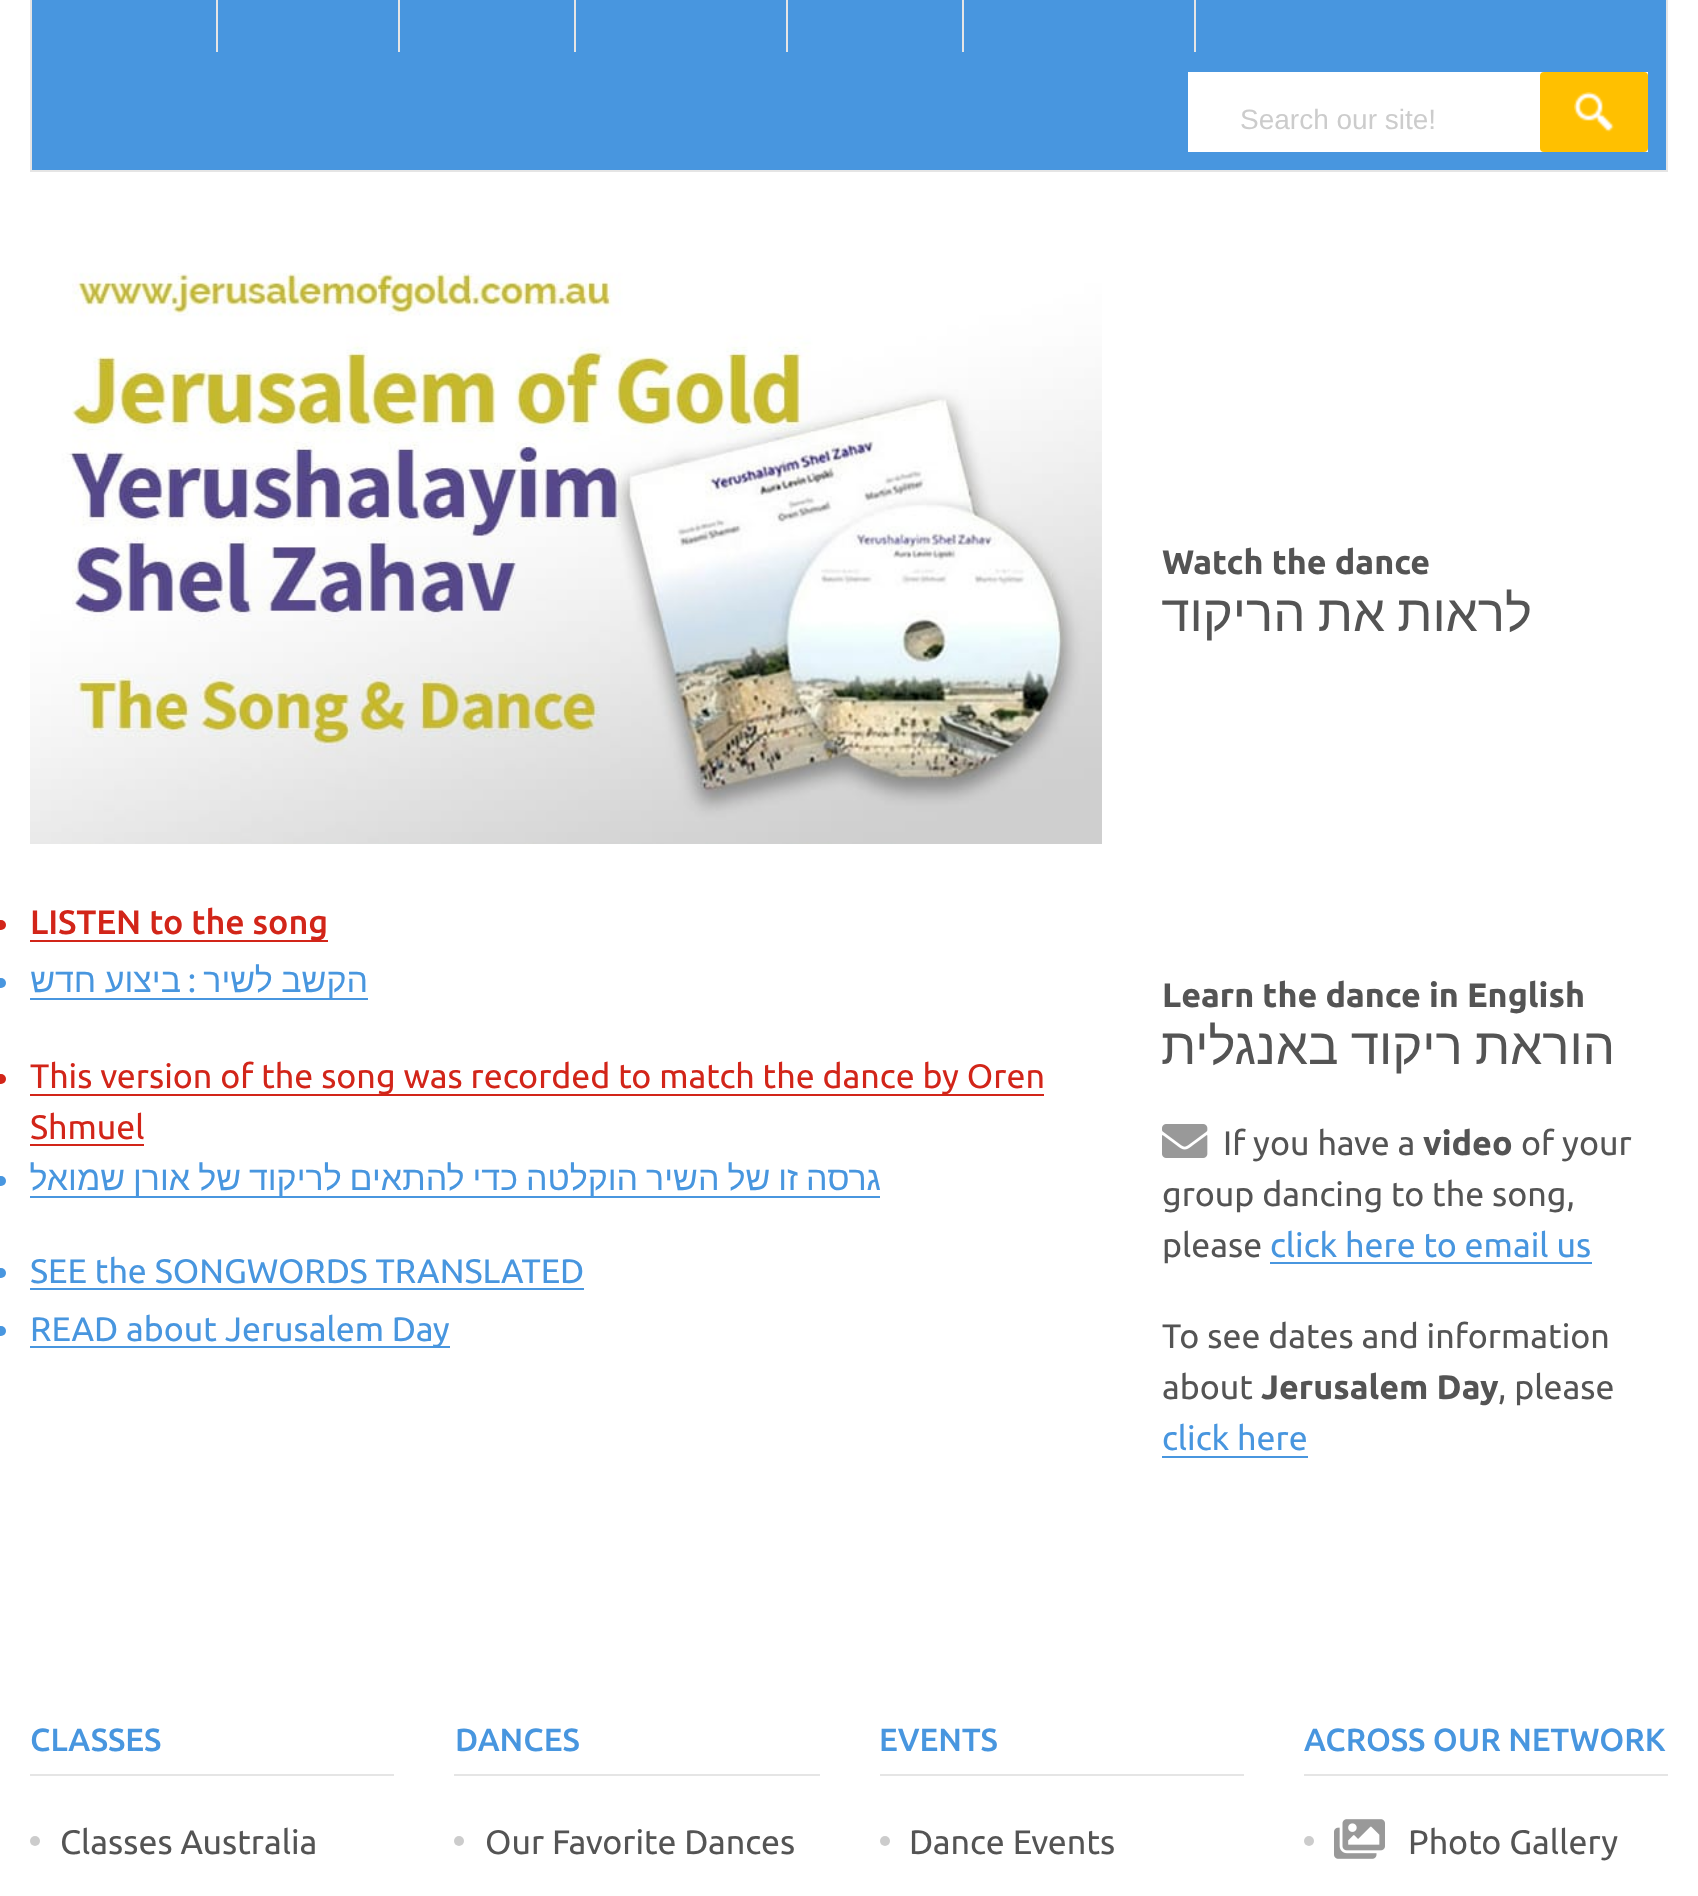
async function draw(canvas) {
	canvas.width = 1698;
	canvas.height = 1896;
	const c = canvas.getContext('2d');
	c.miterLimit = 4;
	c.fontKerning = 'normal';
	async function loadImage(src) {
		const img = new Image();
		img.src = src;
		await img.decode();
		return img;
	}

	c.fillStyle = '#fff';
	c.fillRect(0, 0, 1698, 1896);
	c.fillStyle = '#4896df';
	c.beginPath();
	c.rect(31, -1, 1636, 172);
	c.fill();
	c.strokeStyle = '#e5e5e5';
	c.lineWidth = 2;
	c.stroke();
	for (const [x, y, w, h, color] of [
		[216, 0, 2, 52, '#e5e5e5'],
		[398, 0, 2, 52, '#e5e5e5'],
		[574, 0, 2, 52, '#e5e5e5'],
		[786, 0, 2, 52, '#e5e5e5'],
		[962, 0, 2, 52, '#e5e5e5'],
		[1194, 0, 2, 52, '#e5e5e5'],
		[1188, 72, 460, 80, '#fff'],
	]) {
		c.fillStyle = color;
		c.fillRect(x, y, w, h);
	}
	c.font = '28px Liberation Sans';
	c.fillStyle = '#ccc';
	c.fillText('Search our site!', 1240, 129);
	c.fillStyle = '#ffc000';
	c.beginPath();
	c.roundRect(1540, 72, 108, 80, 4);
	c.fill();
	c.drawImage(await loadImage('img1.png'), 1574, 92, 40, 40);
	c.drawImage(await loadImage('img2.png'), 30, 272, 1072, 572);
	c.fillStyle = '#d22519';
	c.beginPath();
	c.arc(1, 925, 5, 0, 2 * Math.PI);
	c.fill();
	c.fillRect(30, 940, 298, 2);
	c.font = '500 34px Ubuntu';
	c.fillText('LISTEN to the song', 30, 934);
	c.fillStyle = '#4896df';
	c.beginPath();
	c.arc(1, 983, 5, 0, 2 * Math.PI);
	c.fill();
	c.wordSpacing = '-1px';
	c.direction = 'rtl';
	c.font = '34px Liberation Sans';
	c.fillText('ביצוע חדש', 181, 992);
	c.wordSpacing = '0px';
	c.font = '34px Ubuntu';
	c.fillText(':', 196, 992);
	c.fillRect(30, 998, 338, 2);
	c.wordSpacing = '-1px';
	c.font = '34px Liberation Sans';
	c.fillText('הקשב לשיר', 368, 992);
	c.fillStyle = '#d22519';
	c.beginPath();
	c.arc(1, 1079, 5, 0, 2 * Math.PI);
	c.fill();
	c.fillRect(30, 1094, 1014, 2);
	c.wordSpacing = '0px';
	c.direction = 'ltr';
	c.font = '34px Ubuntu';
	c.fillText('This version of the song was recorded to match the dance by Oren', 30, 1088);
	c.fillText('Shmuel', 30, 1139);
	c.fillRect(30, 1144, 114, 2);
	c.fillStyle = '#4896df';
	c.beginPath();
	c.arc(1, 1181, 5, 0, 2 * Math.PI);
	c.fill();
	c.fillRect(30, 1196, 850, 2);
	c.wordSpacing = '-1.5px';
	c.direction = 'rtl';
	c.font = '34px Liberation Sans';
	c.fillText('גרסה זו של השיר הוקלטה כדי להתאים לריקוד של אורן שמואל', 881, 1190);
	c.beginPath();
	c.arc(1, 1273, 5, 0, 2 * Math.PI);
	c.fill();
	c.wordSpacing = '0px';
	c.direction = 'ltr';
	c.font = '34px Ubuntu';
	c.fillText('SEE the SONGWORDS TRANSLATED', 30, 1283);
	c.fillRect(30, 1288, 554, 2);
	c.beginPath();
	c.arc(1, 1331, 5, 0, 2 * Math.PI);
	c.fill();
	c.fillRect(30, 1346, 420, 2);
	c.fillText('READ about Jerusalem Day', 30, 1341);
	c.font = 'bold 34px Ubuntu';
	c.fillStyle = '#545454';
	c.fillText('Watch the dance', 1162, 574);
	c.wordSpacing = '-2px';
	c.direction = 'rtl';
	c.font = '51px Liberation Sans';
	c.fillText('לראות את הריקוד', 1532, 631);
	c.wordSpacing = '0px';
	c.direction = 'ltr';
	c.font = 'bold 34px Ubuntu';
	c.fillText('Learn the dance in English', 1162, 1007);
	c.wordSpacing = '-2px';
	c.direction = 'rtl';
	c.font = '51px Liberation Sans';
	c.fillText('הוראת ריקוד באנגלית', 1615, 1064);
	c.drawImage(await loadImage('img3.png'), 1162, 1124, 46, 34);
	c.wordSpacing = '0px';
	c.direction = 'ltr';
	c.font = '34px Ubuntu';
	c.fillText('If you have a', 1223, 1155);
	c.font = 'bold 34px Ubuntu';
	c.fillText('video', 1423, 1155);
	c.font = '34px Ubuntu';
	for (const [text, x, y] of [
		['of your', 1521, 1155],
		['group dancing to the song,', 1162, 1206],
		['please', 1162, 1257],
	]) {
		c.fillText(text, x, y);
	}
	c.fillStyle = '#4896df';
	c.fillText('click here to email us', 1270, 1257);
	c.fillRect(1270, 1262, 322, 2);
	c.fillStyle = '#545454';
	c.fillText('To see dates and information', 1162, 1348);
	c.fillText('about', 1162, 1399);
	c.font = 'bold 34px Ubuntu';
	c.fillText('Jerusalem Day', 1261, 1399);
	c.font = '34px Ubuntu';
	c.fillText(', please', 1498, 1399);
	c.fillStyle = '#4896df';
	c.fillText('click here', 1162, 1450);
	c.fillRect(1162, 1456, 146, 2);
	c.fillStyle = '#e5e5e5';
	c.fillRect(30, 1774, 364, 2);
	c.font = '500 32px Ubuntu';
	c.fillStyle = '#4896df';
	c.fillText('CLASSES', 30, 1751);
	c.fillStyle = '#ccc';
	c.beginPath();
	c.arc(35, 1841, 5, 0, 2 * Math.PI);
	c.fill();
	c.font = '34px Ubuntu';
	c.fillStyle = '#545454';
	c.fillText('Classes Australia', 60, 1854);
	c.fillStyle = '#e5e5e5';
	c.fillRect(454, 1774, 366, 2);
	c.font = '500 32px Ubuntu';
	c.fillStyle = '#4896df';
	c.fillText('DANCES', 455, 1751);
	c.fillStyle = '#ccc';
	c.beginPath();
	c.arc(459, 1841, 5, 0, 2 * Math.PI);
	c.fill();
	c.font = '34px Ubuntu';
	c.fillStyle = '#545454';
	c.fillText('Our Favorite Dances', 485, 1854);
	c.fillStyle = '#e5e5e5';
	c.fillRect(880, 1774, 364, 2);
	c.font = '500 32px Ubuntu';
	c.fillStyle = '#4896df';
	c.fillText('EVENTS', 879, 1751);
	c.fillStyle = '#ccc';
	c.beginPath();
	c.arc(885, 1841, 5, 0, 2 * Math.PI);
	c.fill();
	c.font = '34px Ubuntu';
	c.fillStyle = '#545454';
	c.fillText('Dance Events', 909, 1854);
	c.fillStyle = '#e5e5e5';
	c.fillRect(1304, 1774, 364, 2);
	c.font = '500 32px Ubuntu';
	c.fillStyle = '#4896df';
	c.fillText('ACROSS OUR NETWORK', 1304, 1751);
	c.fillStyle = '#ccc';
	c.beginPath();
	c.arc(1309, 1841, 5, 0, 2 * Math.PI);
	c.fill();
	c.drawImage(await loadImage('img4.png'), 1334, 1819, 51, 40);
	c.font = '34px Ubuntu';
	c.fillStyle = '#545454';
	c.fillText('Photo Gallery', 1408, 1854);
}

draw(document.querySelector('canvas'));
